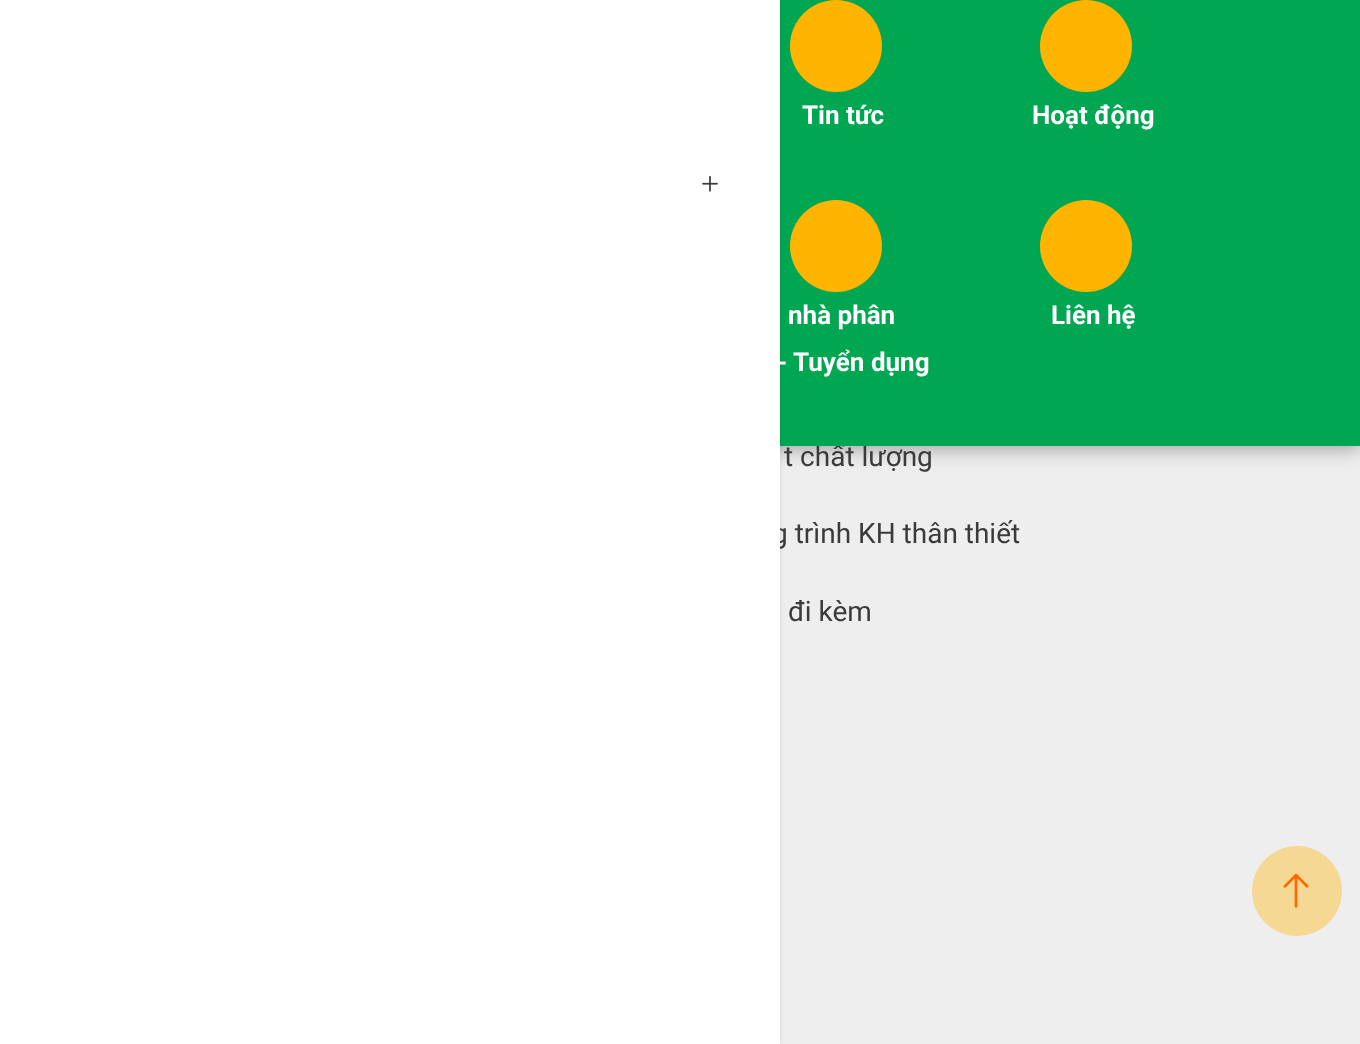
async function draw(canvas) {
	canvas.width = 1360;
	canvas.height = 1044;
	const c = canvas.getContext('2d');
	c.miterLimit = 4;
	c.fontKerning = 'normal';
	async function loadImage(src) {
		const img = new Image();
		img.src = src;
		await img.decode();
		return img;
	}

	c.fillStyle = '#eee';
	c.fillRect(0, 0, 1360, 1044);
	c.fillStyle = '#999';
	c.filter = 'blur(10px)';
	c.beginPath();
	c.rect(0, 2, 1360, 446);
	c.fill();
	c.filter = 'none';
	c.font = '28px Roboto';
	c.fillStyle = '#3b3b3b';
	c.fillText('t chất lượng', 784, 466);
	c.fillStyle = '#00a651';
	c.fillRect(780, 0, 580, 446);
	c.fillStyle = '#00000033';
	c.filter = 'blur(3px)';
	c.beginPath();
	c.rect(-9, 0, 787, 1044);
	c.fill();
	c.filter = 'none';
	c.fillStyle = '#3b3b3b';
	c.fillText('g trình KH thân thiết', 772, 543);
	c.fillStyle = '#fff';
	c.fillRect(0, 0, 780, 1044);
	c.drawImage(await loadImage('img1.png'), 702, 176, 16, 16);
	c.fillStyle = '#ffb500';
	c.beginPath();
	c.arc(836, 46, 46, 0, 2 * Math.PI);
	c.fill();
	c.font = 'bold 26px Roboto';
	c.fillStyle = '#fff';
	c.fillText('Tin tức', 802, 124);
	c.fillStyle = '#ffb500';
	c.beginPath();
	c.arc(1086, 46, 46, 0, 2 * Math.PI);
	c.fill();
	c.fillStyle = '#fff';
	c.fillText('Hoạt động', 1032, 124);
	c.fillStyle = '#ffb500';
	c.beginPath();
	c.arc(836, 246, 46, 0, 2 * Math.PI);
	c.fill();
	c.fillStyle = '#fff';
	c.fillText('nhà phân', 788, 324);
	c.fillText('- Tuyển dụng', 777, 371);
	c.fillStyle = '#ffb500';
	c.beginPath();
	c.arc(1086, 246, 46, 0, 2 * Math.PI);
	c.fill();
	c.fillStyle = '#fff';
	c.fillText('Liên hệ', 1051, 324);
	c.font = '28px Roboto';
	c.fillStyle = '#3b3b3b';
	c.fillText('đi kèm', 788, 621);
	c.fillStyle = '#f4d894';
	c.beginPath();
	c.arc(1297, 891, 45, 0, 2 * Math.PI);
	c.fill();
	c.drawImage(await loadImage('img2.png'), 1283, 873, 26, 35);
}

draw(document.querySelector('canvas'));
